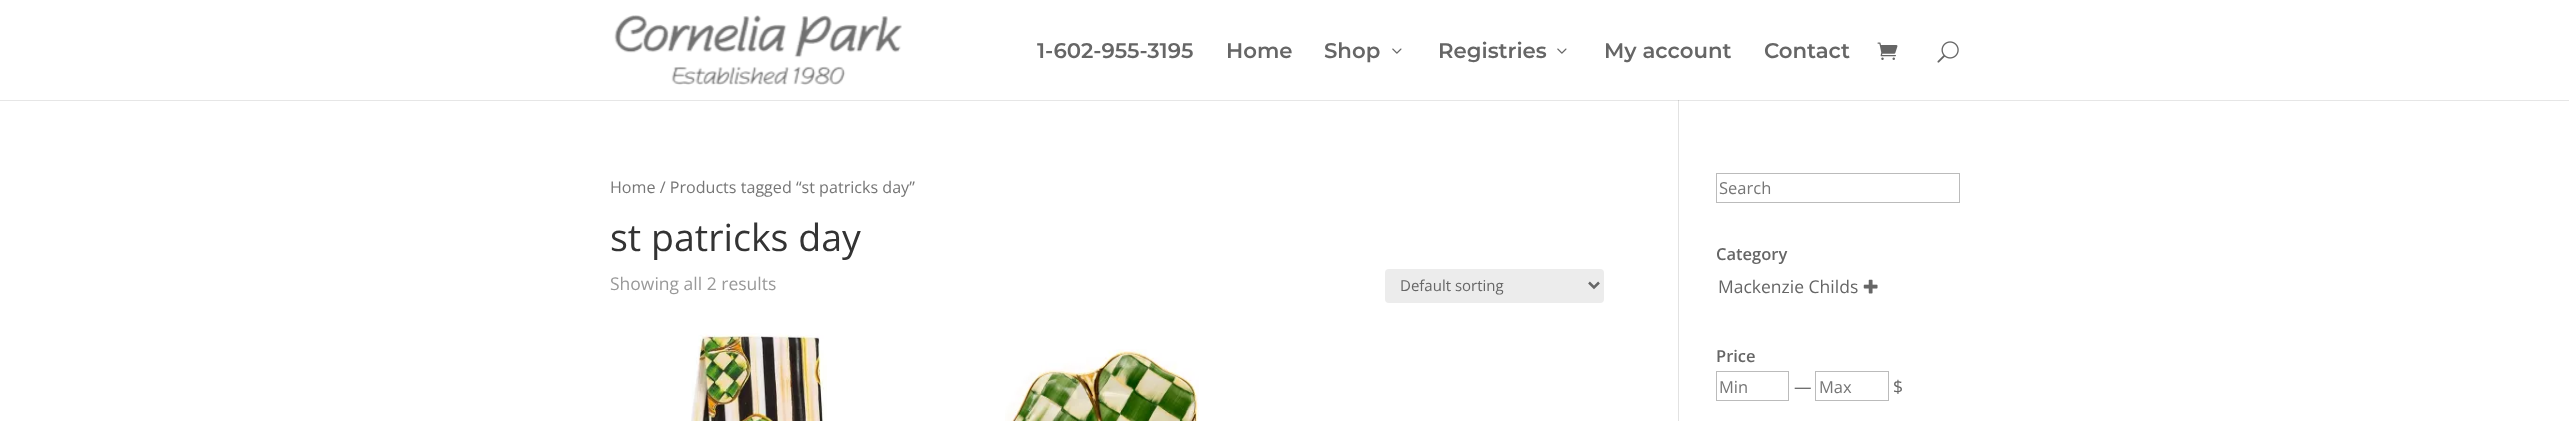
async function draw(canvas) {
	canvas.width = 2569;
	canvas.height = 421;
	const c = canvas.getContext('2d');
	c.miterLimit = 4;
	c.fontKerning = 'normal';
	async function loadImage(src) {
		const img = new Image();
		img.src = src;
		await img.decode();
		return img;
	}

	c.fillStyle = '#fff';
	c.fillRect(0, 0, 2569, 421);
	c.fillStyle = '#e6e6e6';
	c.fillRect(0, 100, 2569, 1);
	c.drawImage(await loadImage('img1.png'), 614, 15, 288, 70);
	c.font = '100 21.25px Montserrat';
	c.fillStyle = '#666';
	for (const [text, x, y] of [
		['1-602-955-3195', 1037, 58],
		['Home', 1226, 58],
		['Shop', 1324, 58],
	]) {
		c.fillText(text, x, y);
	}
	c.drawImage(await loadImage('img2.png'), 1392, 48, 10, 6);
	c.fillText('Registries', 1438, 58);
	c.drawImage(await loadImage('img2.png'), 1557, 48, 10, 6);
	c.fillText('My account', 1604, 58);
	c.fillText('Contact', 1764, 58);
	c.drawImage(await loadImage('img3.png'), 1877, 42, 21, 18);
	c.drawImage(await loadImage('img4.png'), 1937, 41, 22, 22);
	c.fillStyle = '#e2e2e2';
	c.fillRect(1678, 100, 1, 321);
	c.fillStyle = '#cbcbcb';
	c.fillRect(1678, 100, 1, 1);
	c.font = '16.1px Open Sans';
	c.fillStyle = '#767676';
	c.fillText('Home / Products tagged “st patricks day”', 610, 193);
	c.font = '37.5px Open Sans';
	c.fillStyle = '#333';
	c.fillText('st patricks day', 610, 251);
	c.font = '17.5px Open Sans';
	c.fillStyle = '#999';
	c.fillText('Showing all 2 results', 610, 290);
	c.fillStyle = '#ececec';
	c.beginPath();
	c.roundRect(1385, 269, 219, 34, 4);
	c.fill();
	c.beginPath();
	c.moveTo(1589, 282.5);
	c.lineTo(1594, 287.5);
	c.lineTo(1599, 282.5);
	c.strokeStyle = '#666';
	c.lineWidth = 2.5;
	c.stroke();
	c.font = '15px Open Sans';
	c.fillStyle = '#666';
	c.fillText('Default sorting', 1400, 291);
	c.drawImage(await loadImage('img5.png'), 691, 333, 136, 88);
	c.drawImage(await loadImage('img6.png'), 1005, 349, 194, 72);
	c.strokeStyle = '#bbb';
	c.lineWidth = 1;
	c.strokeRect(1716.5, 173.5, 243, 29);
	c.font = '16.5px Open Sans';
	c.fillStyle = '#767676';
	c.fillText('Search', 1719, 194);
	c.font = '600 16.5px Open Sans';
	c.fillStyle = '#666';
	c.fillText('Category', 1716, 260);
	c.font = '17.5px Open Sans';
	c.fillText('Mackenzie Childs', 1718, 293);
	c.drawImage(await loadImage('img7.png'), 1863, 279, 15, 15);
	c.font = '600 16.5px Open Sans';
	c.fillText('Price', 1716, 362);
	c.strokeRect(1716.5, 371.5, 72, 29);
	c.font = '16.5px Open Sans';
	c.fillStyle = '#767676';
	c.fillText('Min', 1719, 393);
	c.font = '17.5px Open Sans';
	c.fillStyle = '#666';
	c.fillText('—', 1794, 393);
	c.strokeRect(1815.5, 371.5, 73, 29);
	c.font = '16.5px Open Sans';
	c.fillStyle = '#767676';
	c.fillText('Max', 1819, 393);
	c.font = '17.5px Open Sans';
	c.fillStyle = '#666';
	c.fillText('$', 1893, 393);
}

draw(document.querySelector('canvas'));
